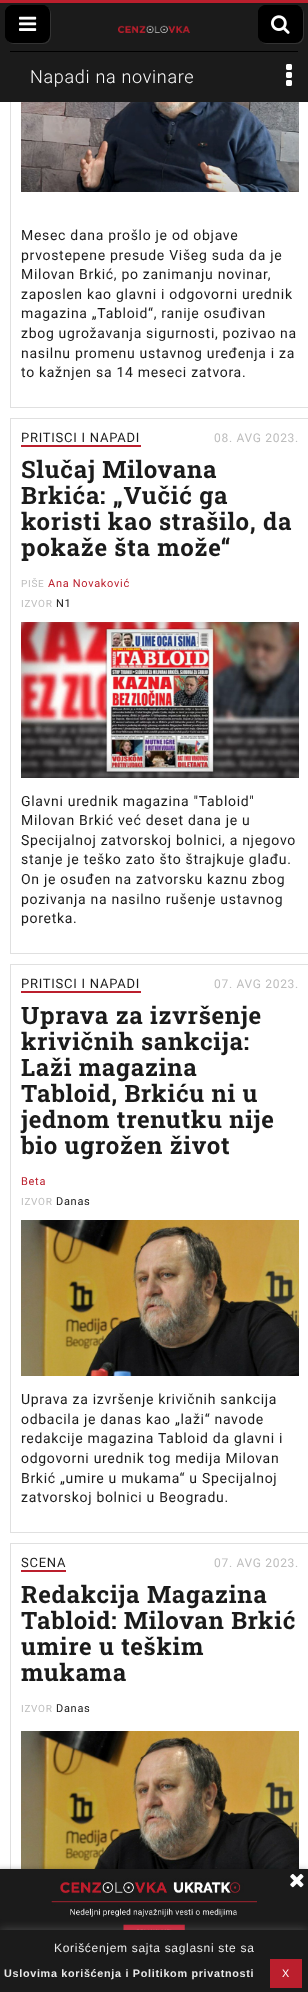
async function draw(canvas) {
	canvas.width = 308;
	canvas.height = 1992;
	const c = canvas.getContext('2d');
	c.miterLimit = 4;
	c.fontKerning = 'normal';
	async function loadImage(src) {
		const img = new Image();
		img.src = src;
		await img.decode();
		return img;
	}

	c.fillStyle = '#fff';
	c.fillRect(0, 0, 308, 1992);
	c.strokeStyle = '#e0e0e0';
	c.strokeRect(10.5, -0.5, 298, 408);
	for (const [x, y, w, h, color] of [
		[0, 3, 308, 99, '#1b1b1b'],
		[0, 0, 308, 3, '#bb1f2d'],
		[10, 51, 288, 1, '#000'],
	]) {
		c.fillStyle = color;
		c.fillRect(x, y, w, h);
	}
	c.fillStyle = '#333';
	c.filter = 'blur(0.5px)';
	c.beginPath();
	c.roundRect(6, 6, 45, 38, 8);
	c.fill();
	c.filter = 'none';
	c.fillStyle = '#000';
	c.beginPath();
	c.roundRect(5, 5, 45, 38, 8);
	c.fill();
	c.beginPath();
	c.moveTo(14, 6);
	c.lineTo(43, 6);
	c.bezierCurveTo(45, 6, 47, 7, 49, 9);
	c.bezierCurveTo(47, 7, 45, 5, 42, 5);
	c.lineTo(13, 5);
	c.bezierCurveTo(9, 5, 5, 9, 5, 13);
	c.lineTo(5, 35);
	c.bezierCurveTo(5, 38, 7, 40, 9, 42);
	c.bezierCurveTo(4, 38, 6, 30, 6, 25);
	c.bezierCurveTo(6, 19, 4, 6, 14, 6);
	c.closePath();
	c.fill();
	c.drawImage(await loadImage('img1.png'), 19, 16, 18, 15);
	c.drawImage(await loadImage('img2.png'), 118, 25, 72, 8);
	c.fillStyle = '#333';
	c.filter = 'blur(0.5px)';
	c.beginPath();
	c.roundRect(259, 6, 45, 38, 8);
	c.fill();
	c.filter = 'none';
	c.fillStyle = '#000';
	c.beginPath();
	c.roundRect(258, 5, 45, 38, 8);
	c.fill();
	c.beginPath();
	c.moveTo(267, 6);
	c.lineTo(296, 6);
	c.bezierCurveTo(298, 6, 300, 7, 302, 9);
	c.bezierCurveTo(300, 7, 298, 5, 295, 5);
	c.lineTo(266, 5);
	c.bezierCurveTo(262, 5, 258, 9, 258, 13);
	c.lineTo(258, 35);
	c.bezierCurveTo(258, 38, 260, 40, 262, 42);
	c.bezierCurveTo(257, 38, 259, 30, 259, 25);
	c.bezierCurveTo(259, 19, 257, 6, 267, 6);
	c.closePath();
	c.fill();
	c.drawImage(await loadImage('img3.png'), 271, 15, 19, 19);
	c.letterSpacing = '0.7px';
	c.font = '300 18px Roboto';
	c.fillStyle = '#fff';
	c.fillText('Napadi na novinare', 30, 83);
	c.drawImage(await loadImage('img4.png'), 286, 64, 6, 22);
	c.drawImage(await loadImage('img5.png'), 21, 102, 278, 90);
	c.font = '14px Roboto';
	c.fillStyle = '#1b1b1b';
	for (const [text, x, y] of [
		['Mesec dana prošlo je od objave', 21, 240],
		['prvostepene presude Višeg suda da je', 21, 260],
		['Milovan Brkić, po zanimanju novinar,', 21, 279],
		['zaposlen kao glavni i odgovorni urednik', 21, 299],
		['magazina „Tabloid“, ranije osuđivan', 21, 318],
		['zbog ugrožavanja sigurnosti, pozivao na', 21, 338],
		['nasilnu promenu ustavnog uređenja i za', 21, 358],
		['to kažnjen sa 14 meseci zatvora.', 21, 377],
	]) {
		c.fillText(text, x, y);
	}
	c.strokeRect(10.5, 418.5, 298, 535);
	c.letterSpacing = '0.75px';
	c.font = '13px Roboto';
	c.fillText('PRITISCI I NAPADI', 21, 442);
	c.fillStyle = '#bb1f2d';
	c.fillRect(21, 445, 120, 2);
	c.letterSpacing = '0.7px';
	c.font = '12px Roboto';
	c.fillStyle = '#bdbdbd';
	c.fillText('08. AVG 2023.', 214, 442);
	c.font = 'bold 24px Roboto Slab';
	c.fillStyle = '#1b1b1b';
	for (const [text, x, y] of [
		['Slučaj Milovana', 21, 478],
		['Brkića: „Vučić ga', 21, 504],
		['koristi kao strašilo, da', 21, 530],
		['pokaže šta može“', 21, 556],
	]) {
		c.fillText(text, x, y);
	}
	c.font = '10px Roboto';
	c.fillStyle = '#bdbdbd';
	c.fillText('PIŠE', 21, 587);
	c.font = '11px Roboto';
	c.fillStyle = '#bb1f2d';
	c.fillText('Ana Novaković', 48, 587);
	c.font = '10px Roboto';
	c.fillStyle = '#bdbdbd';
	c.fillText('IZVOR', 21, 607);
	c.font = '11px Roboto';
	c.fillStyle = '#1b1b1b';
	c.fillText('N1', 56, 607);
	c.drawImage(await loadImage('img6.png'), 21, 622, 278, 156);
	c.font = '14px Roboto';
	for (const [text, x, y] of [
		['Glavni urednik magazina "Tabloid"', 21, 806],
		['Milovan Brkić već deset dana je u', 21, 825],
		['Specijalnoj zatvorskoj bolnici, a njegovo', 21, 845],
		['stanje je teško zato što štrajkuje glađu.', 21, 864],
		['On je osuđen na zatvorsku kaznu zbog', 21, 884],
		['pozivanja na nasilno rušenje ustavnog', 21, 904],
		['poretka.', 21, 923],
	]) {
		c.fillText(text, x, y);
	}
	c.strokeRect(10.5, 964.5, 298, 568);
	c.letterSpacing = '0.75px';
	c.font = '13px Roboto';
	c.fillText('PRITISCI I NAPADI', 21, 988);
	c.fillStyle = '#bb1f2d';
	c.fillRect(21, 991, 120, 2);
	c.letterSpacing = '0.7px';
	c.font = '12px Roboto';
	c.fillStyle = '#bdbdbd';
	c.fillText('07. AVG 2023.', 214, 988);
	c.font = 'bold 24px Roboto Slab';
	c.fillStyle = '#1b1b1b';
	for (const [text, x, y] of [
		['Uprava za izvršenje', 21, 1024],
		['krivičnih sankcija:', 21, 1050],
		['Laži magazina', 21, 1076],
		['Tabloid, Brkiću ni u', 21, 1102],
		['jednom trenutku nije', 21, 1128],
		['bio ugrožen život', 21, 1154],
	]) {
		c.fillText(text, x, y);
	}
	c.font = '11px Roboto';
	c.fillStyle = '#bb1f2d';
	c.fillText('Beta', 21, 1185);
	c.font = '10px Roboto';
	c.fillStyle = '#bdbdbd';
	c.fillText('IZVOR', 21, 1205);
	c.font = '11px Roboto';
	c.fillStyle = '#1b1b1b';
	c.fillText('Danas', 56, 1205);
	c.drawImage(await loadImage('img7.png'), 21, 1220, 278, 156);
	c.font = '14px Roboto';
	for (const [text, x, y] of [
		['Uprava za izvršenje krivičnih sankcija', 21, 1404],
		['odbacila je danas kao „laži“ navode', 21, 1424],
		['redakcije magazina Tabloid da glavni i', 21, 1443],
		['odgovorni urednik tog medija Milovan', 21, 1463],
		['Brkić „umire u mukama“ u Specijalnoj', 21, 1483],
		['zatvorskoj bolnici u Beogradu.', 21, 1502],
	]) {
		c.fillText(text, x, y);
	}
	c.strokeRect(10.5, 1543.5, 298, 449);
	c.letterSpacing = '0.75px';
	c.font = '13px Roboto';
	c.fillText('SCENA', 21, 1567);
	c.fillStyle = '#bb1f2d';
	c.fillRect(21, 1570, 45, 2);
	c.letterSpacing = '0.7px';
	c.font = '12px Roboto';
	c.fillStyle = '#bdbdbd';
	c.fillText('07. AVG 2023.', 214, 1567);
	c.font = 'bold 24px Roboto Slab';
	c.fillStyle = '#1b1b1b';
	for (const [text, x, y] of [
		['Redakcija Magazina', 21, 1603],
		['Tabloid: Milovan Brkić', 21, 1629],
		['umire u teškim', 21, 1655],
		['mukama', 21, 1681],
	]) {
		c.fillText(text, x, y);
	}
	c.font = '10px Roboto';
	c.fillStyle = '#bdbdbd';
	c.fillText('IZVOR', 21, 1712);
	c.font = '11px Roboto';
	c.fillStyle = '#1b1b1b';
	c.fillText('Danas', 56, 1712);
	c.drawImage(await loadImage('img8.png'), 21, 1731, 278, 138);
	c.fillStyle = '#0000007d';
	c.filter = 'blur(3.5px)';
	c.beginPath();
	c.rect(-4, 1871, 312, 88);
	c.fill();
	c.filter = 'none';
	c.fillStyle = '#1b1b1b';
	c.fillRect(0, 1869, 308, 61);
	c.drawImage(await loadImage('img9.png'), 42, 1874, 224, 56);
	c.drawImage(await loadImage('img10.png'), 290, 1874, 14, 14);
	c.fillStyle = '#acabab4d';
	c.filter = 'blur(5px)';
	c.beginPath();
	c.rect(0, 1929, 308, 62);
	c.fill();
	c.filter = 'none';
	c.fillStyle = '#1b1b1b';
	c.fillRect(0, 1930, 308, 62);
	c.font = '12px Liberation Sans';
	c.fillStyle = '#eaeaea';
	c.fillText('Korišćenjem sajta saglasni ste sa', 54, 1952);
	c.font = 'bold 10.8px Liberation Sans';
	c.fillText('Uslovima korišćenja i Politikom privatnosti', 4, 1977);
	c.fillStyle = '#bb1f2d';
	c.fillRect(270, 1959, 32, 29);
	c.font = '10.8px Liberation Sans';
	c.fillStyle = '#fff';
	c.fillText('X', 282, 1977);
}

draw(document.querySelector('canvas'));
